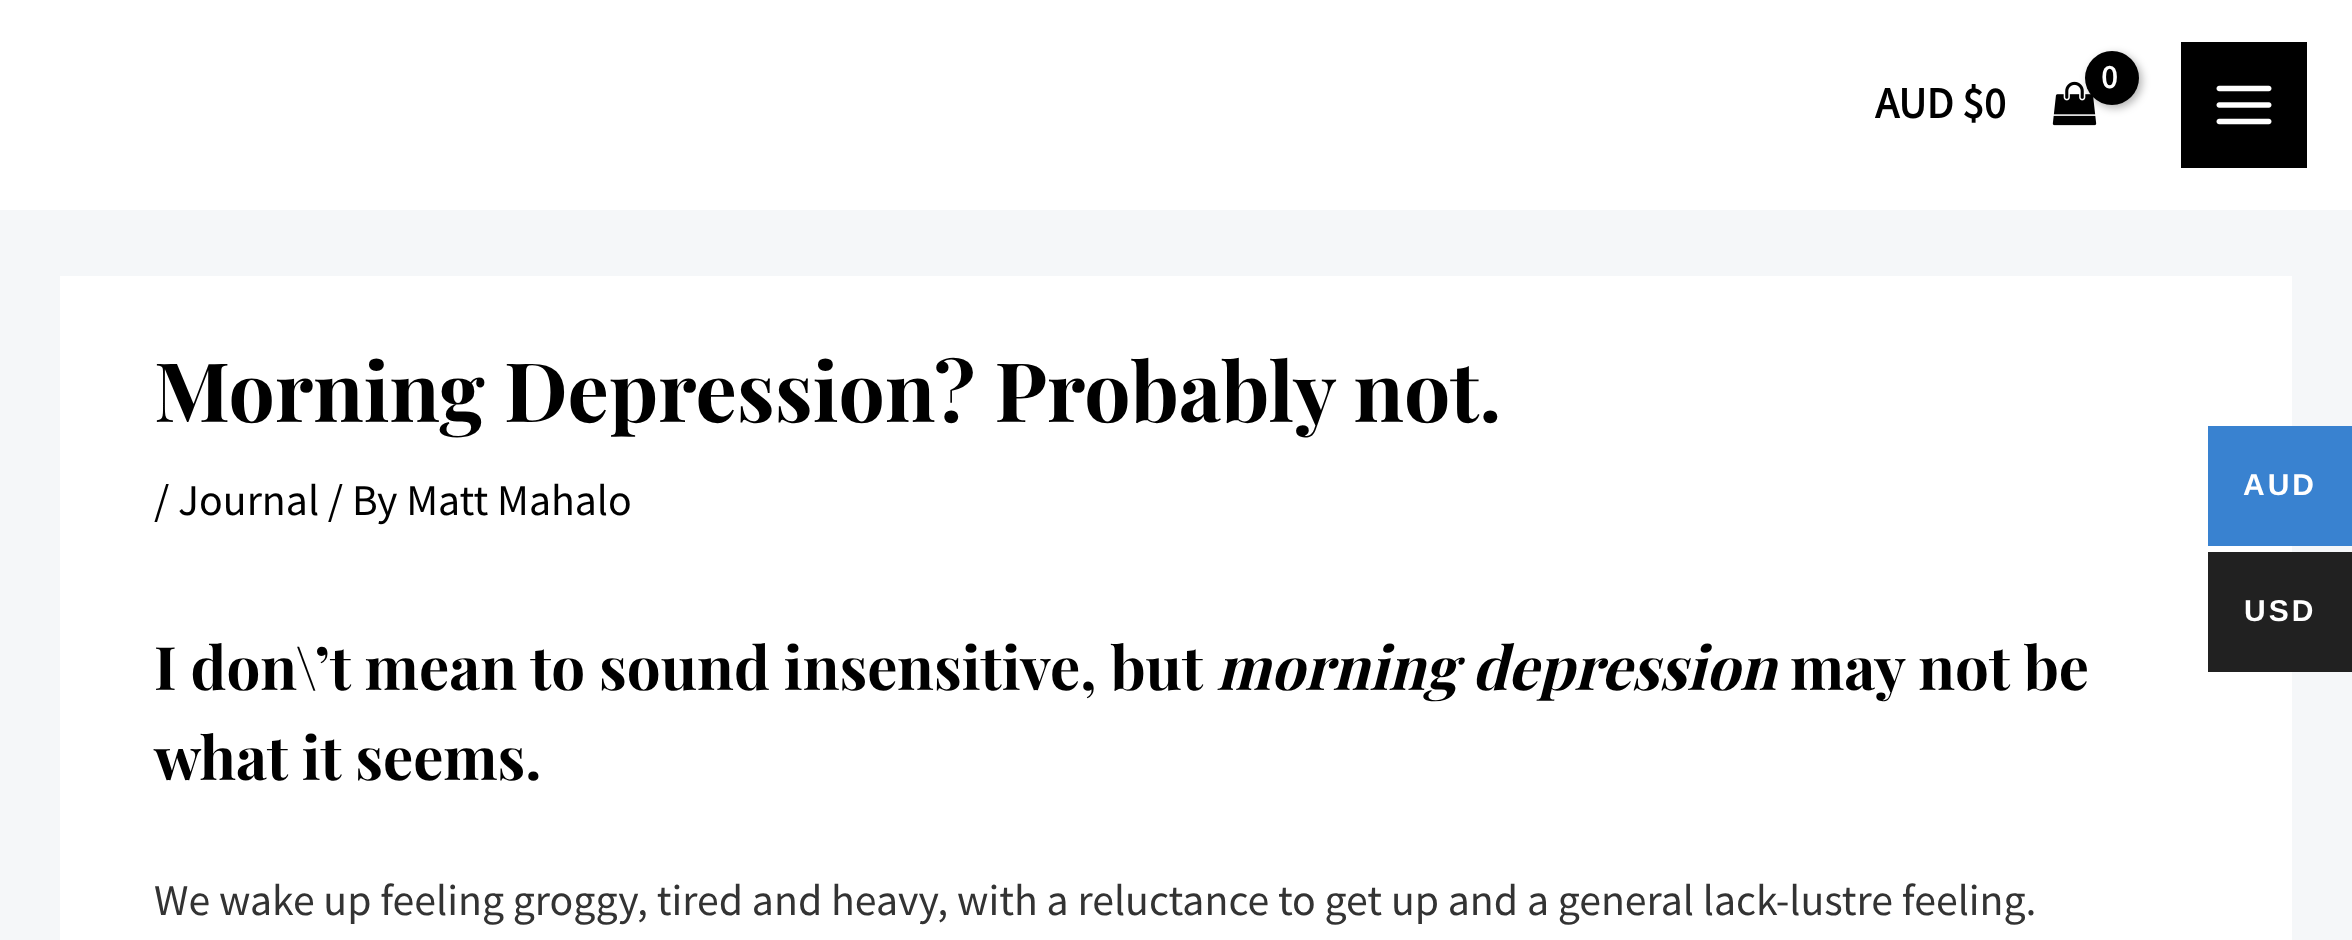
async function draw(canvas) {
	canvas.width = 2352;
	canvas.height = 940;
	const c = canvas.getContext('2d');
	c.miterLimit = 4;
	c.fontKerning = 'normal';
	async function loadImage(src) {
		const img = new Image();
		img.src = src;
		await img.decode();
		return img;
	}

	c.fillStyle = '#f5f7f9';
	c.fillRect(0, 0, 2352, 940);
	c.fillStyle = '#fff';
	c.fillRect(0, 0, 2352, 210);
	c.drawImage(await loadImage('img1.png'), 2052, 81, 45, 45);
	c.fillStyle = '#0000004d';
	c.filter = 'blur(4.5px)';
	c.beginPath();
	c.roundRect(2088, 54, 54, 54, 27);
	c.fill();
	c.filter = 'none';
	c.fillStyle = '#000';
	c.beginPath();
	c.arc(2112, 78, 27, 0, 2 * Math.PI);
	c.fill();
	c.letterSpacing = '-2px';
	c.font = 'bold 33px Source Sans Pro';
	c.fillStyle = '#fff';
	c.fillText('0', 2101, 88);
	c.letterSpacing = '0px';
	c.font = 'bold 43.8px Source Sans Pro';
	c.fillStyle = '#000';
	c.fillText('AUD $0', 1875, 118);
	c.fillRect(2181, 42, 126, 126);
	c.drawImage(await loadImage('img2.png'), 2216, 85, 56, 40);
	c.fillStyle = '#fff';
	c.fillRect(60, 276, 2232, 664);
	c.font = 'bold 82.1px Playfair Display';
	c.fillStyle = '#000';
	c.fillText('Morning Depression? Probably not.', 154, 422);
	c.font = '43.8px Source Sans Pro';
	c.fillText('/ Journal / By Matt Mahalo', 154, 515);
	c.font = 'bold 60px Playfair Display';
	c.fillText('I don\\’t mean to sound insensitive, but', 154, 690);
	c.font = 'italic bold 60px Playfair Display';
	c.fillText('morning depression', 1216, 690);
	c.font = 'bold 60px Playfair Display';
	c.fillText('may not be', 1790, 690);
	c.fillText('what it seems.', 154, 780);
	c.font = '43.8px Source Sans Pro';
	c.fillStyle = '#333';
	c.fillText('We wake up feeling groggy, tired and heavy, with a reluctance to get up and a general lack-lustre feeling.', 154, 915);
	c.fillStyle = '#3982d0';
	c.fillRect(2208, 426, 144, 120);
	c.letterSpacing = '3px';
	c.font = 'bold 30px Liberation Sans';
	c.fillStyle = '#fff';
	c.fillText('AUD', 2243, 495);
	c.fillStyle = '#212121';
	c.fillRect(2208, 552, 144, 120);
	c.fillStyle = '#fff';
	c.fillText('USD', 2244, 621);
}

draw(document.querySelector('canvas'));
